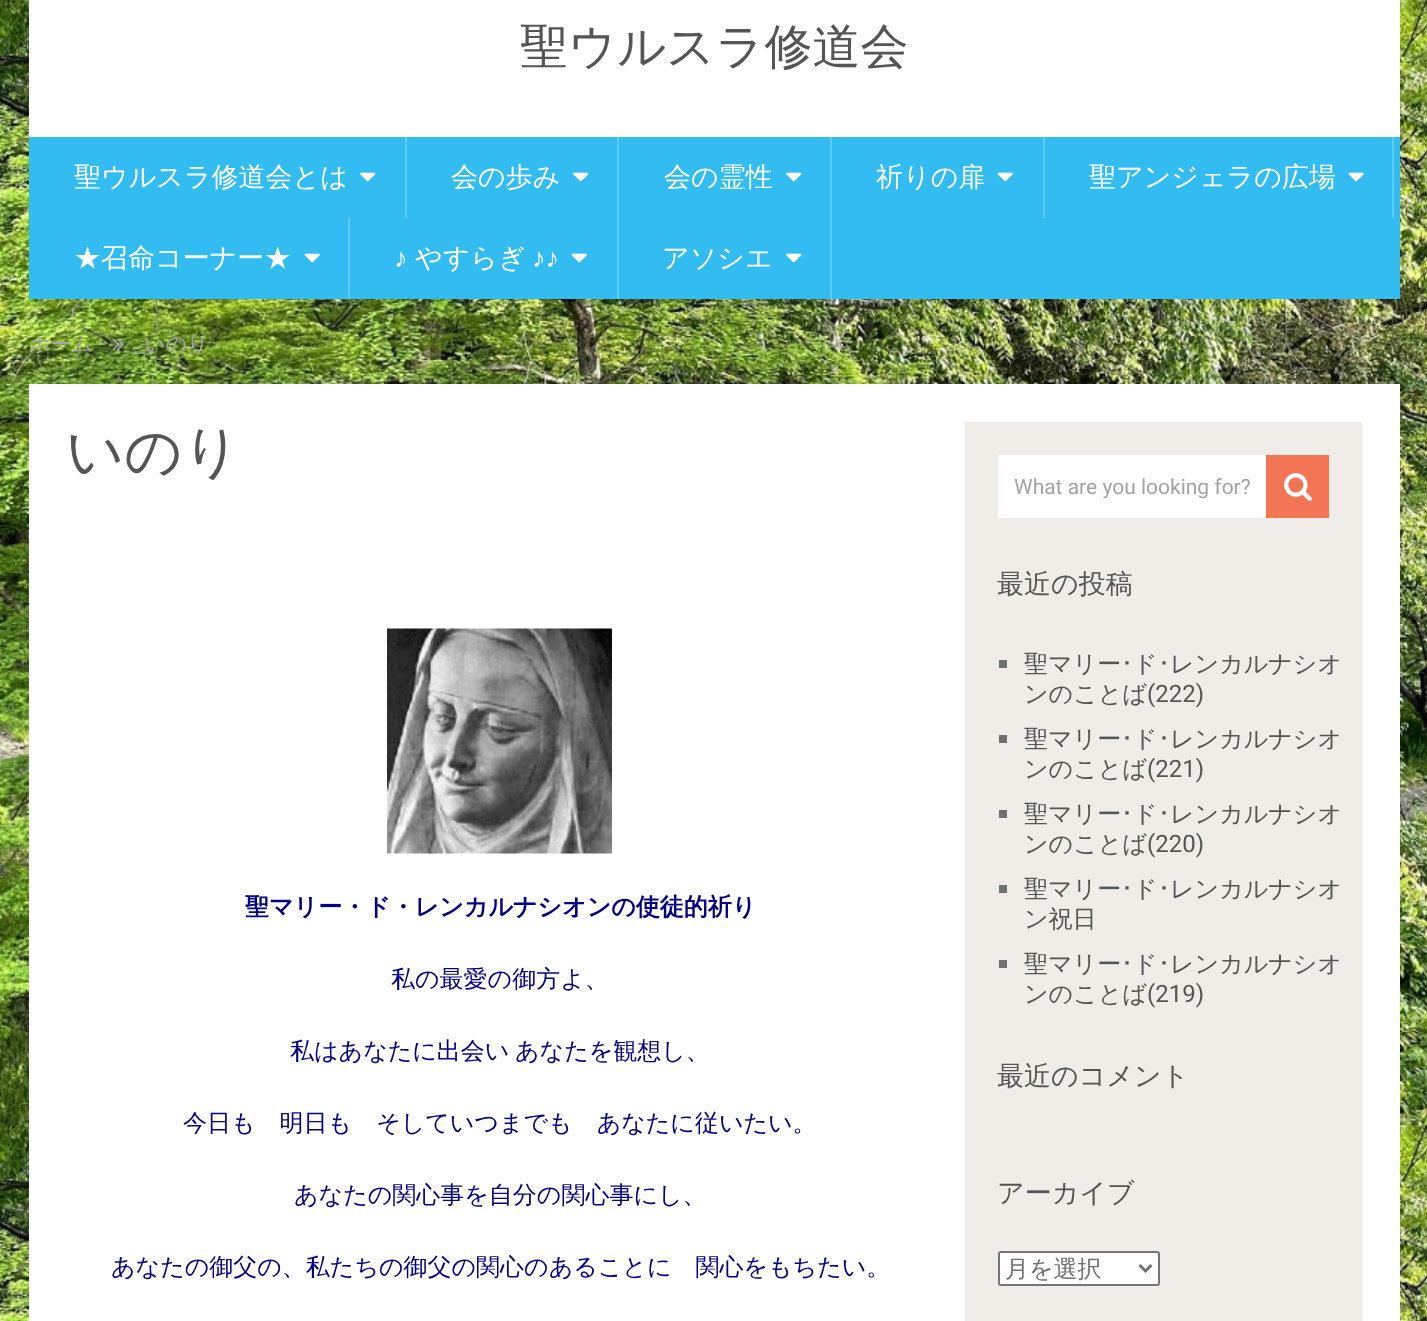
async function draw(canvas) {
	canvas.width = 1427;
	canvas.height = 1321;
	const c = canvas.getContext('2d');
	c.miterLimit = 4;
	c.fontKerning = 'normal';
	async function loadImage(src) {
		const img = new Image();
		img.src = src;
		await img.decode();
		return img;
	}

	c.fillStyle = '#fff';
	c.fillRect(0, 0, 1427, 1321);
	c.drawImage(await loadImage('img1.png'), 0, 0, 1427, 1321);
	c.fillStyle = '#0000000d';
	c.filter = 'blur(1.5px)';
	c.beginPath();
	c.rect(29, 2, 1371, 298);
	c.fill();
	c.filter = 'none';
	c.fillStyle = '#fff';
	c.fillRect(29, 0, 1371, 137);
	c.font = '500 48px WenQuanYi Zen Hei';
	c.fillStyle = '#555';
	c.fillText('聖ウルスラ修道会', 520, 63);
	c.fillStyle = '#33bcf2';
	c.fillRect(29, 137, 1371, 162);
	c.fillStyle = '#60cbf5';
	c.fillRect(405, 137, 2, 81);
	c.font = '500 27px WenQuanYi Zen Hei';
	c.fillStyle = '#fff';
	c.fillText('聖ウルスラ修道会とは', 74, 186);
	c.drawImage(await loadImage('img2.png'), 360, 172, 16, 10);
	c.fillStyle = '#60cbf5';
	c.fillRect(617, 137, 2, 162);
	c.fillStyle = '#fff';
	c.fillText('会の歩み', 451, 186);
	c.drawImage(await loadImage('img2.png'), 573, 172, 16, 10);
	c.fillStyle = '#60cbf5';
	c.fillRect(830, 137, 2, 162);
	c.fillStyle = '#fff';
	c.fillText('会の霊性', 664, 186);
	c.drawImage(await loadImage('img2.png'), 786, 172, 16, 10);
	c.fillStyle = '#60cbf5';
	c.fillRect(1043, 137, 2, 81);
	c.fillStyle = '#fff';
	c.fillText('祈りの扉', 876, 186);
	c.drawImage(await loadImage('img3.png'), 997, 172, 16, 10);
	c.fillStyle = '#60cbf5';
	c.fillRect(1392, 137, 2, 81);
	c.fillStyle = '#fff';
	c.fillText('聖アンジェラの広場', 1089, 186);
	c.drawImage(await loadImage('img3.png'), 1348, 172, 16, 10);
	c.fillStyle = '#60cbf5';
	c.fillRect(348, 218, 2, 81);
	c.fillStyle = '#fff';
	c.fillText('★召命コーナー★', 74, 267);
	c.drawImage(await loadImage('img3.png'), 304, 253, 16, 10);
	c.font = '27px Liberation Sans';
	c.fillText('♪', 394, 267);
	c.font = '500 27px WenQuanYi Zen Hei';
	c.fillText('やすらぎ', 415, 267);
	c.font = '27px Liberation Sans';
	c.fillText('♪♪', 532, 267);
	c.drawImage(await loadImage('img3.png'), 571, 253, 16, 10);
	c.font = '500 27px WenQuanYi Zen Hei';
	c.fillText('アソシエ', 662, 267);
	c.drawImage(await loadImage('img2.png'), 786, 253, 16, 10);
	c.font = '500 21px WenQuanYi Zen Hei';
	c.fillStyle = '#a4a4a4';
	c.fillText('ホーム', 29, 351);
	c.drawImage(await loadImage('img4.png'), 112, 338, 12, 13);
	c.fillText('いのり', 144, 351);
	c.fillStyle = '#fff';
	c.fillRect(29, 384, 1371, 937);
	c.font = '500 57px WenQuanYi Zen Hei';
	c.fillStyle = '#555';
	c.fillText('いのり', 66, 471);
	c.drawImage(await loadImage('img5.png'), 387, 628, 225, 226);
	c.font = 'bold 24px WenQuanYi Zen Hei';
	c.fillStyle = '#000080';
	c.fillText('聖マリー・ド・レンカルナシオンの使徒的祈り', 245, 915);
	c.font = '500 24px WenQuanYi Zen Hei';
	for (const [text, x, y] of [
		['私の最愛の御方よ、', 391, 987],
		['私はあなたに出会い', 290, 1059],
		['あなたを観想し、', 515, 1059],
		['今日も　明日も　そしていつまでも　あなたに従いたい。', 183, 1131],
		['あなたの関心事を自分の関心事にし、', 294, 1203],
		['あなたの御父の、私たちの御父の関心のあることに　関心をもちたい。', 111, 1275],
	]) {
		c.fillText(text, x, y);
	}
	c.fillStyle = '#f0ede9';
	c.fillRect(965, 422, 397, 899);
	c.fillStyle = '#fff';
	c.fillRect(998, 455, 268, 63);
	c.save();
	c.beginPath();
	c.rect(999, 474, 329, 24);
	c.clip();
	c.font = '21px Roboto';
	c.fillStyle = '#a4a4a4';
	c.fillText('What are you looking for?', 1014, 494);
	c.restore();
	c.fillStyle = '#f47555';
	c.fillRect(1266, 455, 63, 63);
	c.drawImage(await loadImage('img6.png'), 1284, 473, 28, 28);
	c.font = '500 27px WenQuanYi Zen Hei';
	c.fillStyle = '#555';
	c.fillText('最近の投稿', 997, 593);
	c.fillStyle = '#707070';
	c.fillRect(999, 660, 8, 8);
	c.font = '500 24px WenQuanYi Zen Hei';
	c.fillStyle = '#555';
	c.fillText('聖マリー', 1024, 672);
	c.font = '24px IPAPGothic';
	c.fillText('･', 1121, 672);
	c.font = '500 24px WenQuanYi Zen Hei';
	c.fillText('ド', 1133, 672);
	c.font = '24px IPAPGothic';
	c.fillText('･', 1158, 672);
	c.font = '500 24px WenQuanYi Zen Hei';
	c.fillText('レンカルナシオ', 1170, 672);
	c.fillText('ンのことば', 1024, 702);
	c.font = '24px Roboto';
	c.fillText('(222)', 1147, 702);
	c.fillStyle = '#707070';
	c.fillRect(999, 735, 8, 8);
	c.font = '500 24px WenQuanYi Zen Hei';
	c.fillStyle = '#555';
	c.fillText('聖マリー', 1024, 747);
	c.font = '24px IPAPGothic';
	c.fillText('･', 1121, 747);
	c.font = '500 24px WenQuanYi Zen Hei';
	c.fillText('ド', 1133, 747);
	c.font = '24px IPAPGothic';
	c.fillText('･', 1158, 747);
	c.font = '500 24px WenQuanYi Zen Hei';
	c.fillText('レンカルナシオ', 1170, 747);
	c.fillText('ンのことば', 1024, 777);
	c.font = '24px Roboto';
	c.fillText('(221)', 1147, 777);
	c.fillStyle = '#707070';
	c.fillRect(999, 810, 8, 8);
	c.font = '500 24px WenQuanYi Zen Hei';
	c.fillStyle = '#555';
	c.fillText('聖マリー', 1024, 822);
	c.font = '24px IPAPGothic';
	c.fillText('･', 1121, 822);
	c.font = '500 24px WenQuanYi Zen Hei';
	c.fillText('ド', 1133, 822);
	c.font = '24px IPAPGothic';
	c.fillText('･', 1158, 822);
	c.font = '500 24px WenQuanYi Zen Hei';
	c.fillText('レンカルナシオ', 1170, 822);
	c.fillText('ンのことば', 1024, 852);
	c.font = '24px Roboto';
	c.fillText('(220)', 1147, 852);
	c.fillStyle = '#707070';
	c.fillRect(999, 885, 8, 8);
	c.font = '500 24px WenQuanYi Zen Hei';
	c.fillStyle = '#555';
	c.fillText('聖マリー', 1024, 897);
	c.font = '24px IPAPGothic';
	c.fillText('･', 1121, 897);
	c.font = '500 24px WenQuanYi Zen Hei';
	c.fillText('ド', 1133, 897);
	c.font = '24px IPAPGothic';
	c.fillText('･', 1158, 897);
	c.font = '500 24px WenQuanYi Zen Hei';
	c.fillText('レンカルナシオ', 1170, 897);
	c.fillText('ン祝日', 1024, 927);
	c.fillStyle = '#707070';
	c.fillRect(999, 960, 8, 8);
	c.fillStyle = '#555';
	c.fillText('聖マリー', 1024, 972);
	c.font = '24px IPAPGothic';
	c.fillText('･', 1121, 972);
	c.font = '500 24px WenQuanYi Zen Hei';
	c.fillText('ド', 1133, 972);
	c.font = '24px IPAPGothic';
	c.fillText('･', 1158, 972);
	c.font = '500 24px WenQuanYi Zen Hei';
	c.fillText('レンカルナシオ', 1170, 972);
	c.fillText('ンのことば', 1024, 1002);
	c.font = '24px Roboto';
	c.fillText('(219)', 1147, 1002);
	c.font = '500 27px WenQuanYi Zen Hei';
	c.fillText('最近のコメント', 997, 1085);
	c.fillText('アーカイブ', 997, 1202);
	c.fillStyle = '#fff';
	c.beginPath();
	c.roundRect(999, 1252, 160, 33, 2);
	c.fill();
	c.strokeStyle = '#767676';
	c.lineWidth = 2;
	c.stroke();
	c.beginPath();
	c.moveTo(1139.5, 1265);
	c.lineTo(1145.5, 1271);
	c.lineTo(1151.5, 1265);
	c.strokeStyle = '#707070';
	c.lineWidth = 3;
	c.stroke();
	c.font = '500 24px WenQuanYi Zen Hei';
	c.fillStyle = '#707070';
	c.fillText('月を選択', 1005, 1277);
}

draw(document.querySelector('canvas'));
